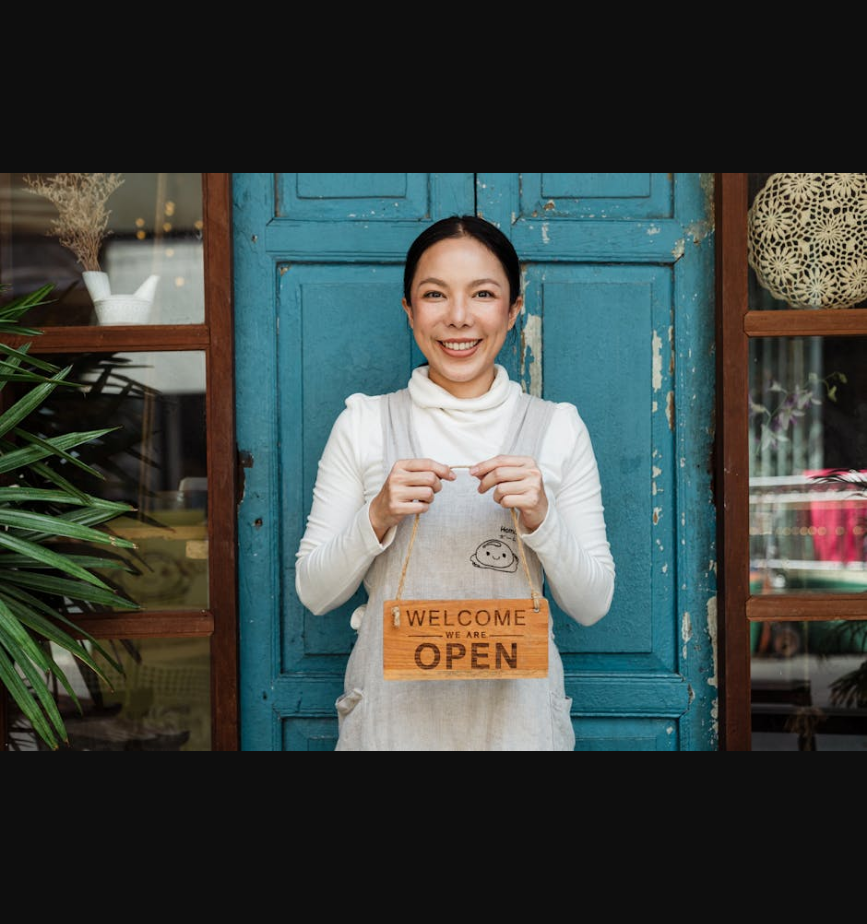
async function draw(canvas) {
	canvas.width = 867;
	canvas.height = 924;
	const c = canvas.getContext('2d');
	c.miterLimit = 4;
	c.fontKerning = 'normal';
	async function loadImage(src) {
		const img = new Image();
		img.src = src;
		await img.decode();
		return img;
	}

	c.fillStyle = '#0e0e0e';
	c.fillRect(0, 0, 867, 924);
	c.drawImage(await loadImage('img1.png'), 0, 173, 867, 578);
}

draw(document.querySelector('canvas'));
